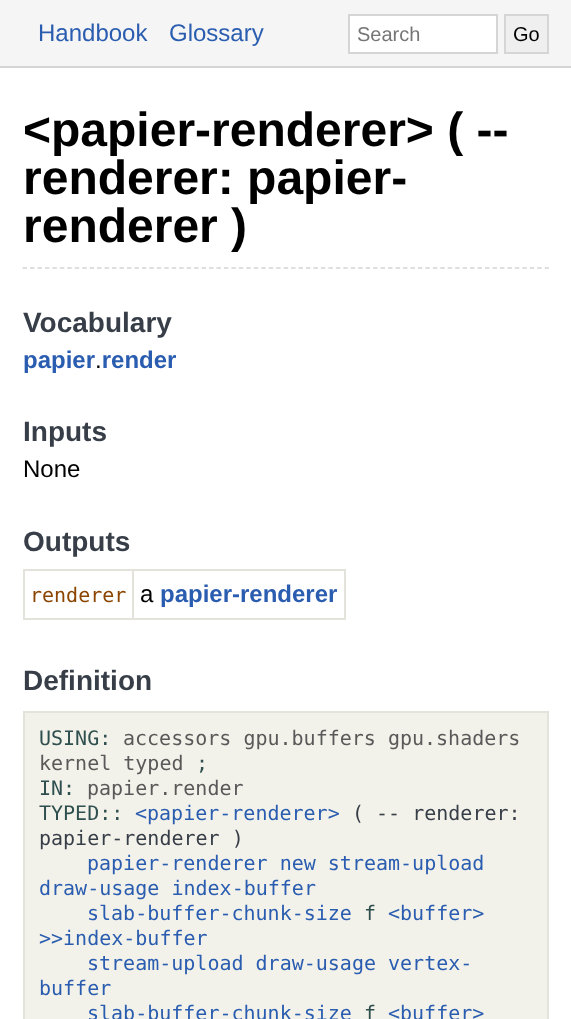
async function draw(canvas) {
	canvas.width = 571;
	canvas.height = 1019;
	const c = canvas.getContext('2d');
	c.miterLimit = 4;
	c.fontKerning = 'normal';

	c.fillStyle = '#fff';
	c.fillRect(0, 0, 571, 1019);
	c.fillStyle = '#f5f5f5';
	c.fillRect(0, 0, 571, 66);
	c.fillStyle = '#d5d5d5';
	c.fillRect(0, 66, 571, 2);
	c.font = '24px Liberation Sans';
	c.fillStyle = '#2a5db0';
	c.fillText('Handbook', 38, 41);
	c.fillText('Glossary', 169, 41);
	c.fillStyle = '#fff';
	c.beginPath();
	c.rect(349, 15, 148, 38);
	c.fill();
	c.strokeStyle = '#d5d5d5';
	c.lineWidth = 2;
	c.stroke();
	c.font = '20px Liberation Sans';
	c.fillStyle = '#757575';
	c.fillText('Search', 357, 41);
	c.fillStyle = '#efefef';
	c.beginPath();
	c.rect(505, 15, 43, 38);
	c.fill();
	c.stroke();
	c.fillStyle = '#000';
	c.fillText('Go', 513, 41);
	c.beginPath();
	c.moveTo(22.5, 268);
	c.lineTo(549, 268);
	c.lineWidth = 1.5;
	c.setLineDash([4.5, 2.96]);
	c.stroke();
	c.font = 'bold 48px Liberation Sans';
	for (const [text, x, y] of [
		['<papier-renderer> ( --', 23, 146],
		['renderer: papier-', 23, 194],
		['renderer )', 23, 242],
	]) {
		c.fillText(text, x, y);
	}
	c.font = 'bold 28px Liberation Sans';
	c.fillStyle = '#373e48';
	c.fillText('Vocabulary', 23, 332);
	c.font = 'bold 24px Liberation Sans';
	c.fillStyle = '#2a5db0';
	c.fillText('papier render', 23, 368);
	c.font = '24px Liberation Sans';
	c.fillStyle = '#000';
	c.fillText('.', 95, 368);
	c.font = 'bold 28px Liberation Sans';
	c.fillStyle = '#373e48';
	c.fillText('Inputs', 23, 441);
	c.font = '24px Liberation Sans';
	c.fillStyle = '#000';
	c.fillText('None', 23, 477);
	c.font = 'bold 28px Liberation Sans';
	c.fillStyle = '#373e48';
	c.fillText('Outputs', 23, 551);
	for (const [x, y, w, h, color] of [
		[132, 569, 213, 2, '#e3e2db'],
		[344, 569, 2, 51, '#e3e2db'],
		[132, 618, 213, 2, '#e3e2db'],
		[132, 569, 2, 51, '#e3e2db'],
		[23, 569, 111, 2, '#e3e2db'],
		[23, 618, 111, 2, '#e3e2db'],
		[23, 569, 2, 51, '#e3e2db'],
	]) {
		c.fillStyle = color;
		c.fillRect(x, y, w, h);
	}
	c.font = '20px DejaVu Sans Mono';
	c.fillStyle = '#8b4500';
	c.fillText('renderer', 30, 602);
	c.font = '24px Liberation Sans';
	c.fillStyle = '#000';
	c.fillText('a', 140, 602);
	c.font = 'bold 24px Liberation Sans';
	c.fillStyle = '#2a5db0';
	c.fillText('papier-renderer', 160, 602);
	c.font = 'bold 28px Liberation Sans';
	c.fillStyle = '#373e48';
	c.fillText('Definition', 23, 690);
	c.fillStyle = '#f3f2ea';
	c.beginPath();
	c.rect(24, 712, 524, 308);
	c.fill();
	c.strokeStyle = '#e3e2db';
	c.lineWidth = 2;
	c.setLineDash([]);
	c.stroke();
	c.font = '20px DejaVu Sans Mono';
	c.fillStyle = '#2f4f4f';
	c.fillText('USING:', 39, 745);
	c.fillStyle = '#595959';
	c.fillText('accessors gpu.buffers gpu.shaders', 123, 745);
	c.fillText('kernel typed', 39, 770);
	c.fillStyle = '#2f4f4f';
	c.fillText(';', 196, 770);
	c.fillText('IN:', 39, 795);
	c.fillStyle = '#595959';
	c.fillText('papier.render', 87, 795);
	c.fillStyle = '#2f4f4f';
	c.fillText('TYPED::', 39, 820);
	c.fillStyle = '#2a5db0';
	c.fillText('<papier-renderer>', 135, 820);
	c.fillStyle = '#373e48';
	c.fillText('( -- renderer:', 352, 820);
	c.fillText('papier-renderer )', 39, 845);
	c.fillStyle = '#2a5db0';
	for (const [text, x, y] of [
		['papier-renderer new stream-upload', 87, 870],
		['draw-usage index-buffer', 39, 895],
		['slab-buffer-chunk-size', 87, 920],
	]) {
		c.fillText(text, x, y);
	}
	c.fillStyle = '#2f4f4f';
	c.fillText('f', 364, 920);
	c.fillStyle = '#2a5db0';
	for (const [text, x, y] of [
		['<buffer>', 388, 920],
		['>>index-buffer', 39, 945],
		['stream-upload draw-usage vertex-', 87, 970],
		['buffer', 39, 995],
		['slab-buffer-chunk-size', 87, 1020],
	]) {
		c.fillText(text, x, y);
	}
	c.fillStyle = '#2f4f4f';
	c.fillText('f', 364, 1020);
	c.fillStyle = '#2a5db0';
	c.fillText('<buffer>', 388, 1020);
}

draw(document.querySelector('canvas'));
